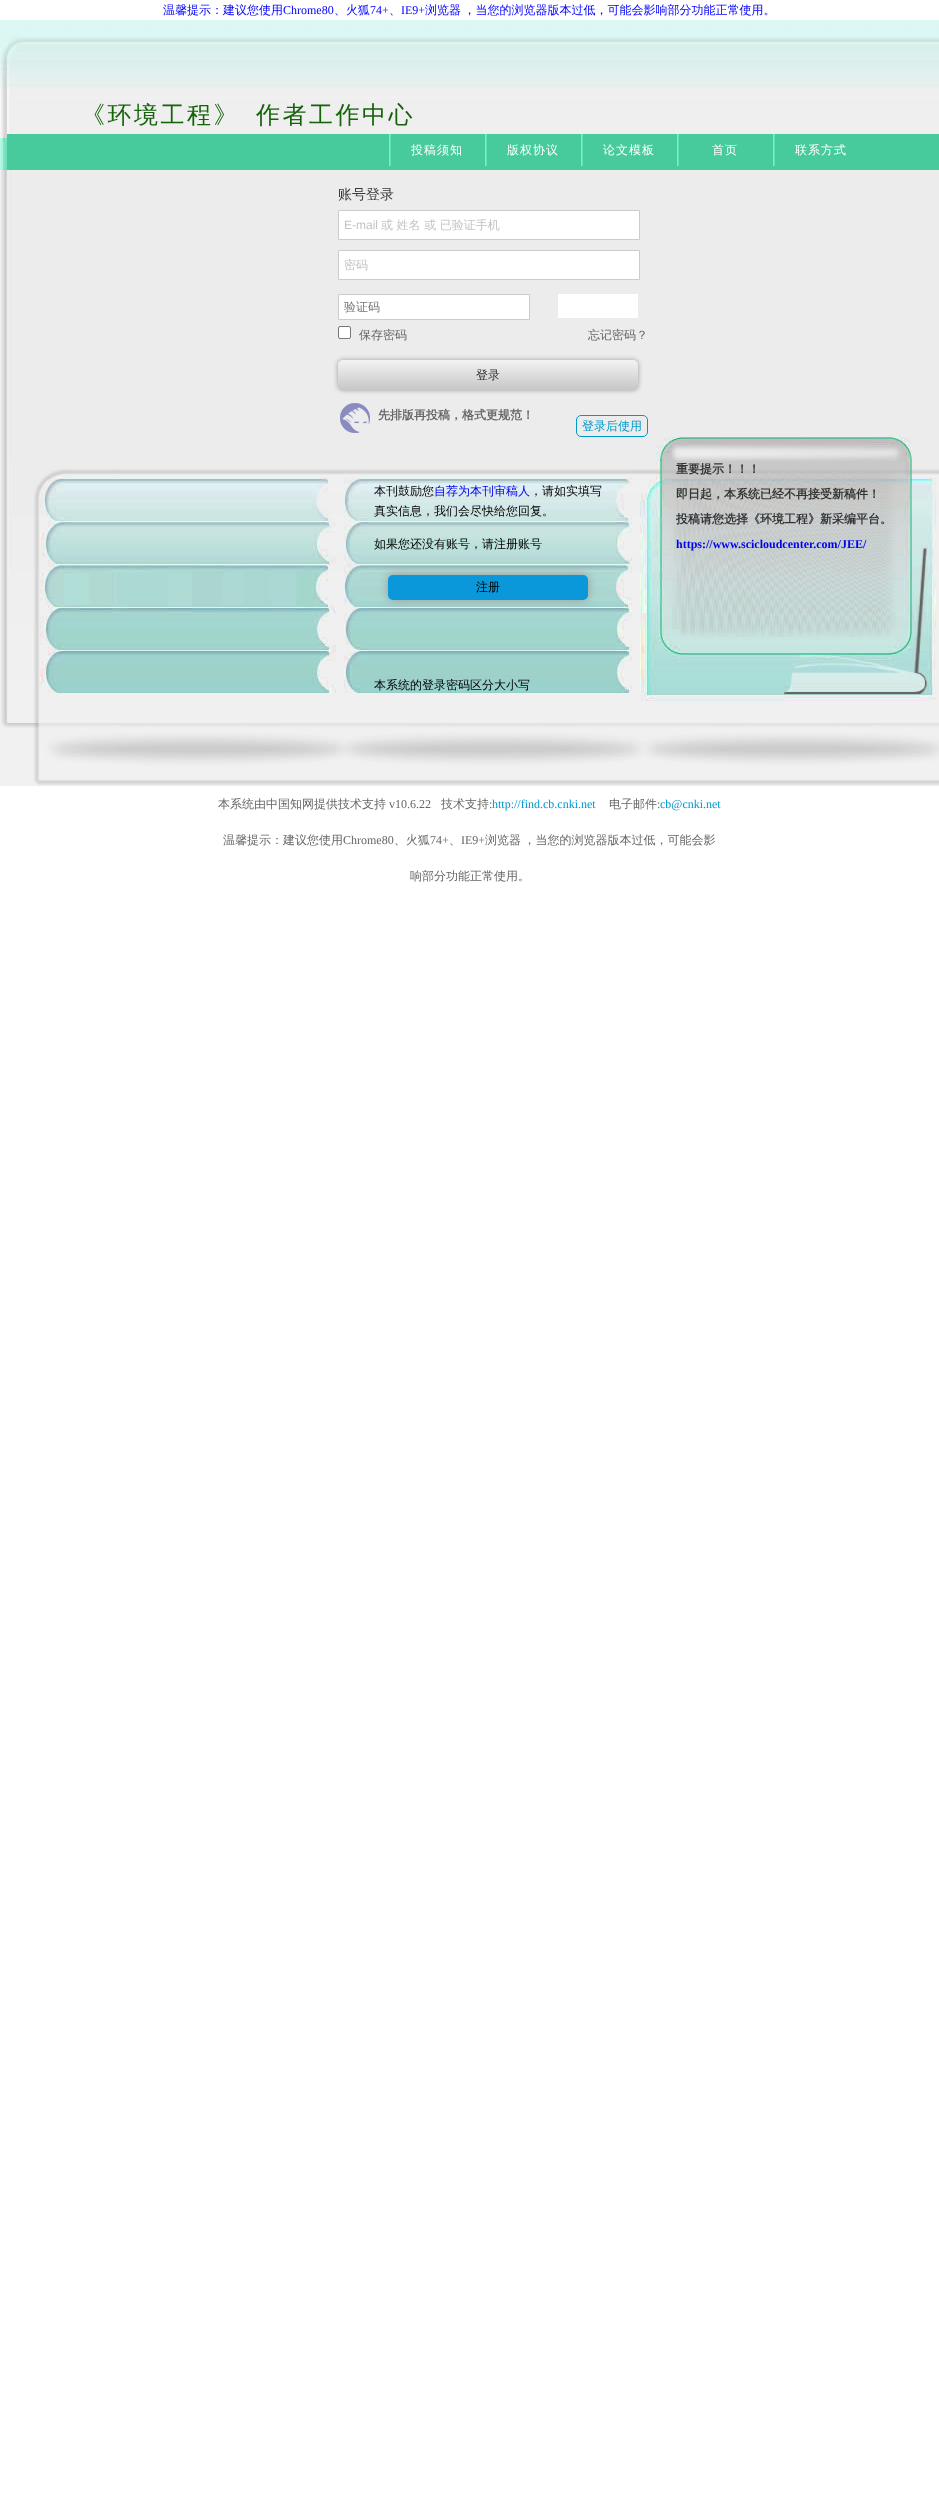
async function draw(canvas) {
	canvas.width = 939;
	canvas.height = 2506;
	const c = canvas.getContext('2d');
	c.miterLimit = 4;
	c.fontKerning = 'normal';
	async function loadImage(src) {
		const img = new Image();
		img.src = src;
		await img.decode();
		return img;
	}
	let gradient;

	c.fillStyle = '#fff';
	c.fillRect(0, 0, 939, 2506);
	c.font = '500 12px WenQuanYi Zen Hei';
	c.fillStyle = '#00f';
	c.fillText('温馨提示：建议您使用', 163, 14);
	c.font = '12px Liberation Serif';
	c.fillText('Chrome80', 283, 14);
	c.font = '500 12px WenQuanYi Zen Hei';
	c.fillText('、火狐', 334, 14);
	c.font = '12px Liberation Serif';
	c.fillText('74+', 370, 14);
	c.font = '500 12px WenQuanYi Zen Hei';
	c.fillText('、', 389, 14);
	c.font = '12px Liberation Serif';
	c.fillText('IE9+', 401, 14);
	c.wordSpacing = '-1px';
	c.font = '500 12px WenQuanYi Zen Hei';
	c.fillText('浏览器 ，当您的浏览器版本过低，可能会影响部分功能正常使用。', 425, 14);
	c.drawImage(await loadImage('img1.png'), 0, 20, 939, 16);
	c.drawImage(await loadImage('img2.png'), 0, 170, 939, 616);
	c.drawImage(await loadImage('img3.png'), 0, 36, 939, 98);
	c.drawImage(await loadImage('img4.png'), 0, 37, 23, 97);
	c.letterSpacing = '2.5px';
	c.wordSpacing = '0px';
	c.font = '500 24px WenQuanYi Zen Hei';
	c.fillStyle = '#146309';
	c.fillText('《环境工程》', 81, 123);
	c.fillText('作者工作中心', 256, 123);
	c.fillStyle = '#47cb9c';
	c.fillRect(7, 134, 932, 36);
	c.drawImage(await loadImage('img5.png'), 0, 134, 7, 36);
	c.drawImage(await loadImage('img6.png'), 389, 134, 2, 32);
	c.letterSpacing = '1px';
	c.font = '500 12px WenQuanYi Zen Hei';
	c.fillStyle = '#fff';
	c.fillText('投稿须知', 411, 154);
	c.drawImage(await loadImage('img6.png'), 485, 134, 2, 32);
	c.fillText('版权协议', 507, 154);
	c.drawImage(await loadImage('img6.png'), 581, 134, 2, 32);
	c.fillText('论文模板', 603, 154);
	c.drawImage(await loadImage('img6.png'), 677, 134, 2, 32);
	c.fillText('首页', 712, 154);
	c.drawImage(await loadImage('img6.png'), 773, 134, 2, 32);
	c.fillText('联系方式', 795, 154);
	c.letterSpacing = '0px';
	c.font = '500 14px WenQuanYi Zen Hei';
	c.fillStyle = '#3a3a3a';
	c.fillText('账号登录', 338, 199);
	c.fillStyle = '#fff';
	c.beginPath();
	c.rect(338.5, 210.5, 301, 29);
	c.fill();
	c.strokeStyle = '#ccc';
	c.stroke();
	c.font = '12px Liberation Sans';
	c.fillStyle = '#c3c3c3';
	c.fillText('E-mail', 344, 229);
	c.font = '500 12px WenQuanYi Zen Hei';
	c.fillText('或 姓名 或 已验证手机', 381, 229);
	c.fillStyle = '#fff';
	c.beginPath();
	c.rect(338.5, 250.5, 301, 29);
	c.fill();
	c.stroke();
	c.fillStyle = '#c3c3c3';
	c.fillText('密码', 344, 269);
	c.fillStyle = '#fff';
	c.beginPath();
	c.rect(338.5, 294.5, 191, 25);
	c.fill();
	c.stroke();
	c.fillStyle = '#757575';
	c.fillText('验证码', 344, 311);
	c.fillStyle = '#fff';
	c.fillRect(558, 294, 80, 24);
	c.beginPath();
	c.roundRect(338.5, 326.5, 12, 12, 1.5);
	c.fill();
	c.strokeStyle = '#767676';
	c.stroke();
	c.fillStyle = '#666';
	c.fillText('保存密码', 359, 339);
	c.fillText('忘记密码？', 588, 339);
	c.fillStyle = '#999';
	c.filter = 'blur(2.5px)';
	c.beginPath();
	c.roundRect(338, 360, 300, 30, 5);
	c.fill();
	c.filter = 'none';
	gradient = c.createLinearGradient(488, 360, 488, 390);
	gradient.addColorStop(0, '#f3f3f3');
	gradient.addColorStop(1, '#c6c6c6');
	c.fillStyle = gradient;
	c.beginPath();
	c.roundRect(338, 360, 300, 30, 5);
	c.fill();
	c.fillStyle = '#333';
	c.fillText('登录', 476, 379);
	c.drawImage(await loadImage('img7.png'), 340, 403, 30, 30);
	c.font = 'bold 12px WenQuanYi Zen Hei';
	c.fillStyle = '#666';
	c.fillText('先排版再投稿，格式更规范！', 378, 419);
	c.beginPath();
	c.roundRect(576.5, 415.5, 71, 21, 4.5);
	c.strokeStyle = '#09c';
	c.stroke();
	c.font = '500 12px WenQuanYi Zen Hei';
	c.fillStyle = '#09c';
	c.fillText('登录后使用', 582, 430);
	c.drawImage(await loadImage('img8.png'), 1, 437, 938, 349);
	c.fillStyle = '#000';
	c.fillText('本刊鼓励您', 374, 495);
	c.fillStyle = '#00e';
	c.fillText('自荐为本刊审稿人', 434, 495);
	c.fillStyle = '#000';
	for (const [text, x, y] of [
		['，请如实填写', 530, 495],
		['真实信息，我们会尽快给您回复。', 374, 515],
		['如果您还没有账号，请注册账号', 374, 548],
	]) {
		c.fillText(text, x, y);
	}
	c.fillStyle = '#999';
	c.filter = 'blur(5px)';
	c.beginPath();
	c.roundRect(388, 575, 200, 25, 5);
	c.fill();
	c.filter = 'none';
	c.fillStyle = '#0b98da';
	c.beginPath();
	c.roundRect(388, 575, 200, 25, 5);
	c.fill();
	c.fillStyle = '#000';
	c.fillText('注册', 476, 591);
	c.fillText('本系统的登录密码区分大小写', 374, 689);
	c.font = 'bold 12px WenQuanYi Zen Hei';
	c.fillStyle = '#333';
	for (const [text, x, y] of [
		['重要提示！！！', 676, 473],
		['即日起，本系统已经不再接受新稿件！', 676, 498],
		['投稿请您选择《环境工程》新采编平台。', 676, 523],
	]) {
		c.fillText(text, x, y);
	}
	c.font = 'bold 12px Liberation Serif';
	c.fillStyle = '#00e';
	c.fillText('https://www.scicloudcenter.com/JEE/', 676, 548);
	c.font = '500 12px WenQuanYi Zen Hei';
	c.fillStyle = '#666';
	c.fillText('本系统由中国知网提供技术支持', 218, 808);
	c.font = '12px Liberation Serif';
	c.fillText('v10.6.22', 389, 808);
	c.font = '500 12px WenQuanYi Zen Hei';
	c.fillText('技术支持', 441, 808);
	c.font = '12px Liberation Serif';
	c.fillText(':', 489, 808);
	c.fillStyle = '#09c';
	c.fillText('http://find.cb.cnki.net', 492, 808);
	c.font = '500 12px WenQuanYi Zen Hei';
	c.fillStyle = '#666';
	c.fillText('电子邮件', 609, 808);
	c.font = '12px Liberation Serif';
	c.fillText(':', 657, 808);
	c.fillStyle = '#09c';
	c.fillText('cb@cnki.net', 660, 808);
	c.font = '500 12px WenQuanYi Zen Hei';
	c.fillStyle = '#666';
	c.fillText('温馨提示：建议您使用', 223, 844);
	c.font = '12px Liberation Serif';
	c.fillText('Chrome80', 343, 844);
	c.font = '500 12px WenQuanYi Zen Hei';
	c.fillText('、火狐', 394, 844);
	c.font = '12px Liberation Serif';
	c.fillText('74+', 430, 844);
	c.font = '500 12px WenQuanYi Zen Hei';
	c.fillText('、', 449, 844);
	c.font = '12px Liberation Serif';
	c.fillText('IE9+', 461, 844);
	c.wordSpacing = '-1px';
	c.font = '500 12px WenQuanYi Zen Hei';
	c.fillText('浏览器 ，当您的浏览器版本过低，可能会影', 485, 844);
	c.wordSpacing = '0px';
	c.fillText('响部分功能正常使用。', 410, 880);
}

draw(document.querySelector('canvas'));
